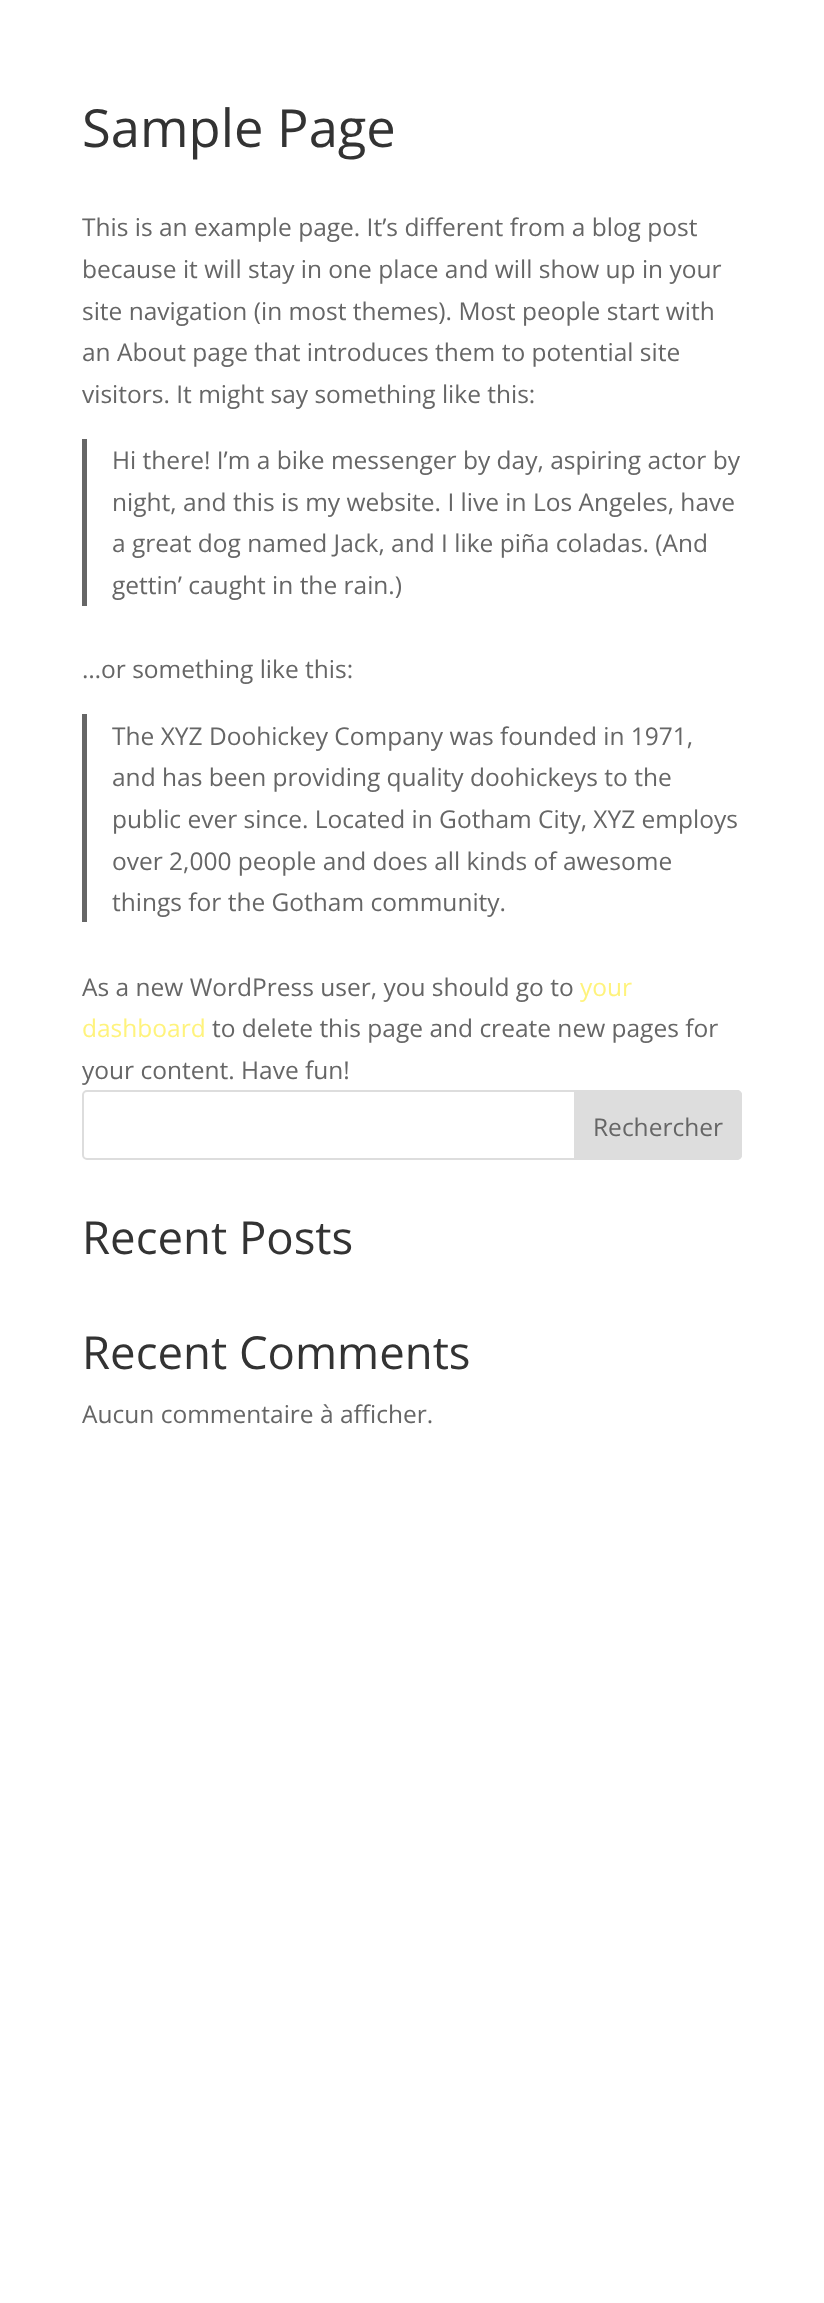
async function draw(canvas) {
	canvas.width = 824;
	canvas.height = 2303;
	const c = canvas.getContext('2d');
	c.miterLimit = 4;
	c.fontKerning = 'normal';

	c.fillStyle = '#fff';
	c.fillRect(0, 0, 824, 2303);
	c.font = '52.5px Open Sans';
	c.fillStyle = '#333';
	c.fillText('Sample Page', 82, 147);
	c.font = '24.5px Open Sans';
	c.fillStyle = '#666';
	for (const [text, x, y] of [
		['This is an example page. It’s different from a blog post', 82, 236],
		['because it will stay in one place and will show up in your', 82, 278],
		['site navigation (in most themes). Most people start with', 82, 320],
		['an About page that introduces them to potential site', 82, 361],
		['visitors. It might say something like this:', 82, 403],
	]) {
		c.fillText(text, x, y);
	}
	c.fillRect(82, 439, 5, 167);
	for (const [text, x, y] of [
		['Hi there! I’m a bike messenger by day, aspiring actor by', 112, 469],
		['night, and this is my website. I live in Los Angeles, have', 112, 511],
		['a great dog named Jack, and I like piña coladas. (And', 112, 552],
		['gettin’ caught in the rain.)', 112, 594],
		['…or something like this:', 82, 678],
	]) {
		c.fillText(text, x, y);
	}
	c.fillRect(82, 714, 5, 208);
	for (const [text, x, y] of [
		['The XYZ Doohickey Company was founded in 1971,', 112, 745],
		['and has been providing quality doohickeys to the', 112, 786],
		['public ever since. Located in Gotham City, XYZ employs', 112, 828],
		['over 2,000 people and does all kinds of awesome', 112, 870],
		['things for the Gotham community.', 112, 911],
		['As a new WordPress user, you should go to', 82, 996],
	]) {
		c.fillText(text, x, y);
	}
	c.fillStyle = '#fff37c';
	c.fillText('your', 580, 996);
	c.fillText('dashboard', 82, 1037);
	c.fillStyle = '#666';
	c.fillText('to delete this page and create new pages for', 212, 1037);
	c.fillText('your content. Have fun!', 82, 1079);
	c.beginPath();
	c.roundRect(83, 1091, 658, 68, 4);
	c.strokeStyle = '#ddd';
	c.lineWidth = 2;
	c.stroke();
	c.fillStyle = '#ddd';
	c.beginPath();
	c.roundRect(575, 1091, 166, 68, [0, 4, 4, 0]);
	c.fill();
	c.stroke();
	c.fillStyle = '#666';
	c.fillText('Rechercher', 593, 1136);
	c.font = '45.5px Open Sans';
	c.fillStyle = '#333';
	c.fillText('Recent Posts', 82, 1254);
	c.fillText('Recent Comments', 82, 1369);
	c.font = '24.5px Open Sans';
	c.fillStyle = '#666';
	c.fillText('Aucun commentaire à afficher.', 82, 1423);
}

draw(document.querySelector('canvas'));
